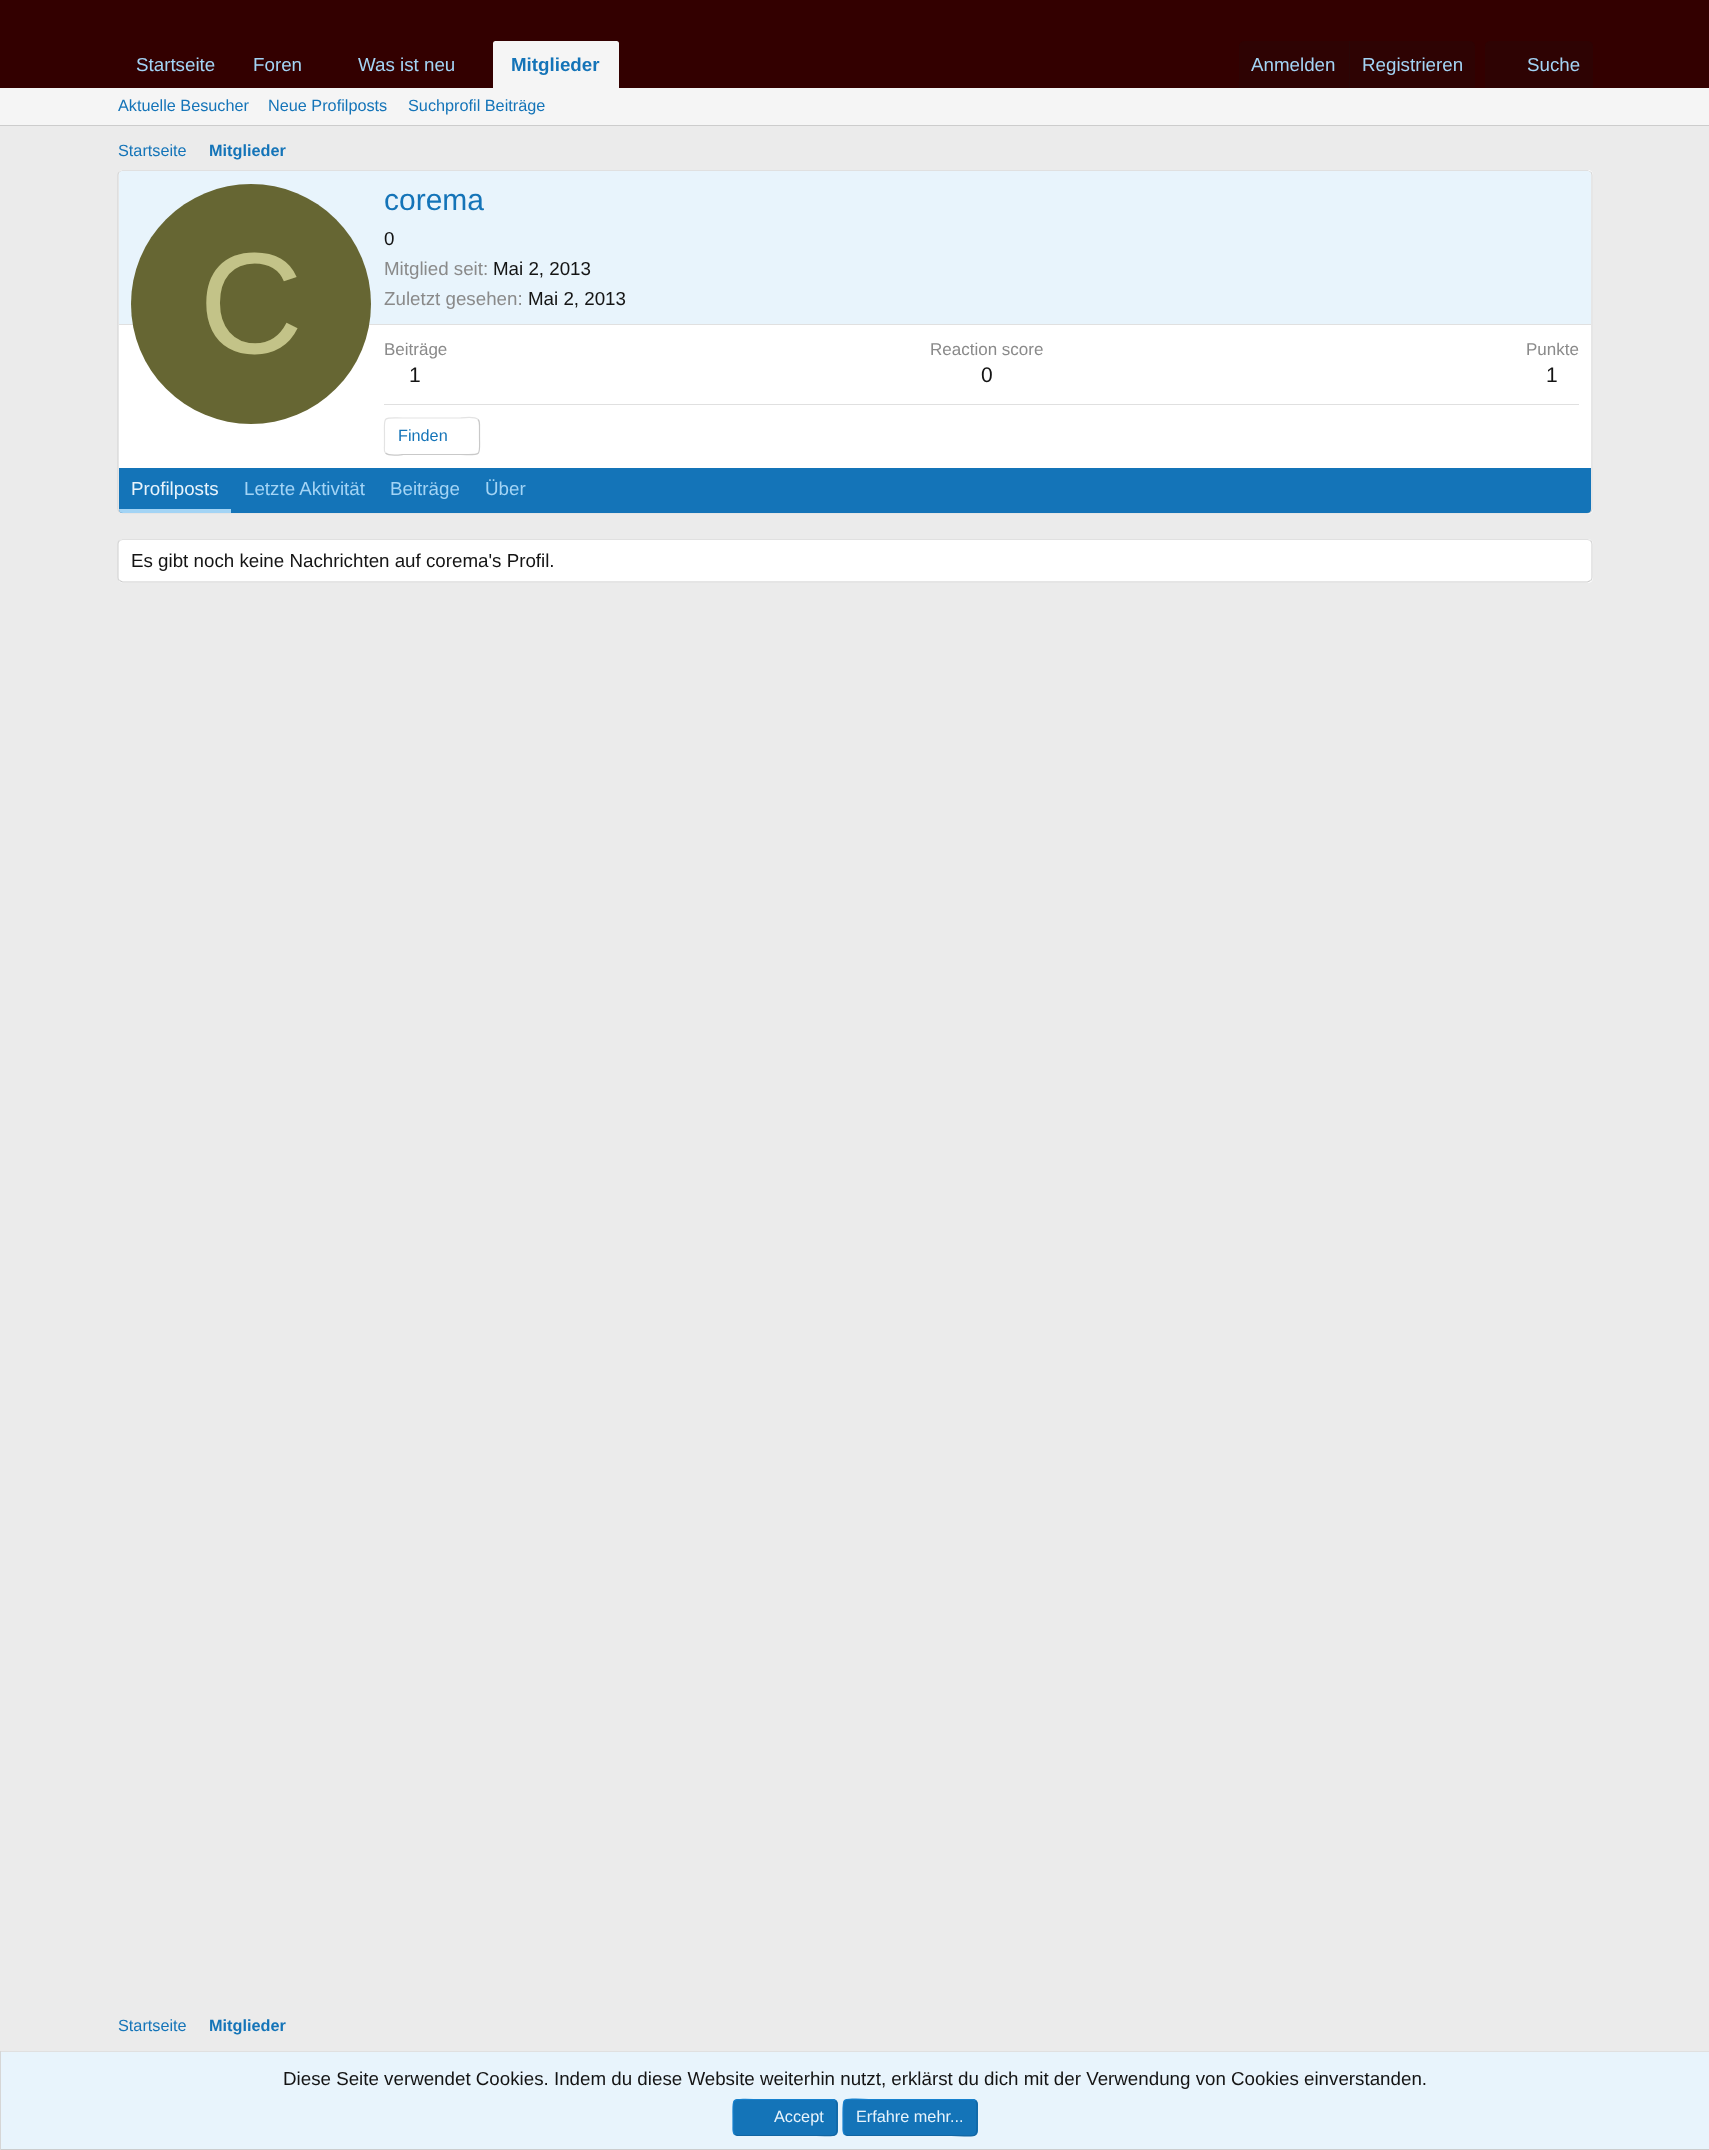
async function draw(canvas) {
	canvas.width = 1709;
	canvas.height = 2150;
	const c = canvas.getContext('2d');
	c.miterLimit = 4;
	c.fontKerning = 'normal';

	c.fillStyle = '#ebebeb';
	c.fillRect(0, 0, 1709, 2150);
	c.fillStyle = '#300';
	c.fillRect(0, 0, 1709, 88);
	c.font = '18.75px Liberation Sans';
	c.fillStyle = '#a3d4f5';
	for (const [text, x, y] of [
		['Startseite', 136, 71],
		['Foren', 253, 71],
		['Was ist neu', 358, 71],
	]) {
		c.fillText(text, x, y);
	}
	c.fillStyle = '#f5f5f5';
	c.beginPath();
	c.roundRect(493, 41, 126, 47, [2.5, 2.5, 0, 0]);
	c.fill();
	c.font = 'bold 18.75px Liberation Sans';
	c.fillStyle = '#1474b8';
	c.fillText('Mitglieder', 511, 71);
	c.fillStyle = '#2e0303';
	c.beginPath();
	c.roundRect(1239, 41, 236, 47, [5, 5, 0, 0]);
	c.fill();
	c.font = '18.75px Liberation Sans';
	c.fillStyle = '#a3d4f5';
	c.fillText('Anmelden', 1251, 71);
	c.fillStyle = '#2a0606';
	c.fillRect(1349, 41, 1, 47);
	c.fillStyle = '#a3d4f5';
	c.fillText('Registrieren', 1362, 71);
	c.fillStyle = '#2e0303';
	c.beginPath();
	c.roundRect(1485, 41, 108, 47, [5, 5, 0, 0]);
	c.fill();
	c.fillStyle = '#a3d4f5';
	c.fillText('Suche', 1527, 71);
	c.fillStyle = '#f5f5f5';
	c.fillRect(0, 88, 1709, 37);
	c.fillStyle = '#ccc';
	c.fillRect(0, 125, 1709, 1);
	c.font = '16.25px Liberation Sans';
	c.fillStyle = '#1474b8';
	for (const [text, x, y] of [
		['Aktuelle Besucher', 118, 111],
		['Neue Profilposts', 268, 111],
		['Suchprofil Beiträge', 408, 111],
		['Startseite', 118, 156],
	]) {
		c.fillText(text, x, y);
	}
	c.font = 'bold 16.25px Liberation Sans';
	c.fillText('Mitglieder', 209, 156);
	c.fillStyle = '#fff';
	c.beginPath();
	c.roundRect(118, 170, 1475, 344, 5);
	c.fill();
	c.beginPath();
	c.moveTo(119.5, 172);
	c.lineTo(122.5, 170.5);
	c.lineTo(1587.5, 170.5);
	c.lineTo(1590.5, 172);
	c.strokeStyle = '#e0e0e0';
	c.lineWidth = 1.2;
	c.stroke();
	c.beginPath();
	c.moveTo(1590.5, 172);
	c.bezierCurveTo(1591.5, 172.5, 1592, 174, 1592, 175);
	c.lineTo(1592, 509);
	c.bezierCurveTo(1592, 510, 1591.5, 511, 1590.5, 512);
	c.strokeStyle = '#d6d6d6';
	c.stroke();
	c.beginPath();
	c.moveTo(1590.5, 512);
	c.lineTo(1587.5, 513);
	c.lineTo(122.5, 513);
	c.lineTo(119.5, 512);
	c.strokeStyle = '#ccc';
	c.stroke();
	c.beginPath();
	c.moveTo(119.5, 512);
	c.bezierCurveTo(118.5, 511, 118, 510, 118, 509);
	c.lineTo(118, 175);
	c.bezierCurveTo(118, 174, 118.5, 172.5, 119.5, 172);
	c.strokeStyle = '#d6d6d6';
	c.stroke();
	c.fillStyle = '#e8f4fc';
	c.beginPath();
	c.roundRect(119, 171, 1472, 154, [4, 4, 0, 0]);
	c.fill();
	c.fillStyle = '#e0e0e0';
	c.fillRect(119, 324, 1472, 1);
	c.fillStyle = '#663';
	c.beginPath();
	c.arc(251, 304, 120, 0, 2 * Math.PI);
	c.fill();
	c.font = '144px Liberation Sans';
	c.fillStyle = '#c3c388';
	c.fillText('C', 199, 353);
	c.font = '30px Liberation Sans';
	c.fillStyle = '#1474b8';
	c.fillText('corema', 384, 210);
	c.font = '18.75px Liberation Sans';
	c.fillStyle = '#141414';
	c.fillText('0', 384, 245);
	c.fillStyle = '#8a8a8a';
	c.fillText('Mitglied seit:', 384, 275);
	c.fillStyle = '#141414';
	c.fillText('Mai 2, 2013', 493, 275);
	c.fillStyle = '#8a8a8a';
	c.fillText('Zuletzt gesehen:', 384, 305);
	c.fillStyle = '#141414';
	c.fillText('Mai 2, 2013', 528, 305);
	c.font = '17px Liberation Sans';
	c.fillStyle = '#8a8a8a';
	c.fillText('Beiträge', 384, 355);
	c.font = '21px Liberation Sans';
	c.fillStyle = '#141414';
	c.fillText('1', 409, 382);
	c.font = '17px Liberation Sans';
	c.fillStyle = '#8a8a8a';
	c.fillText('Reaction score', 930, 355);
	c.font = '21px Liberation Sans';
	c.fillStyle = '#141414';
	c.fillText('0', 981, 382);
	c.font = '17px Liberation Sans';
	c.fillStyle = '#8a8a8a';
	c.fillText('Punkte', 1526, 355);
	c.font = '21px Liberation Sans';
	c.fillStyle = '#141414';
	c.fillText('1', 1546, 382);
	c.fillStyle = '#e0e0e0';
	c.fillRect(384, 404, 1195, 1);
	c.beginPath();
	c.moveTo(478, 419.5);
	c.bezierCurveTo(480, 421.5, 479.5, 424.5, 479.5, 427);
	c.lineTo(479.5, 436);
	c.bezierCurveTo(479.5, 457, 482.5, 454.5, 460.5, 454.5);
	c.lineTo(403, 454.5);
	c.bezierCurveTo(402.5, 454.5, 389, 456.5, 385.5, 453);
	c.strokeStyle = '#c9c9c9';
	c.stroke();
	c.beginPath();
	c.moveTo(385.5, 453);
	c.bezierCurveTo(383.5, 451, 384.5, 448, 384.5, 445.5);
	c.lineTo(384.5, 436);
	c.bezierCurveTo(384.5, 415.5, 381.5, 418, 403, 418);
	c.lineTo(460.5, 418);
	c.bezierCurveTo(461, 418, 474.5, 416, 478, 419.5);
	c.strokeStyle = '#e3e3e3';
	c.stroke();
	c.font = '16.25px Liberation Sans';
	c.fillStyle = '#1474b8';
	c.fillText('Finden', 398, 441);
	c.beginPath();
	c.roundRect(119, 468, 1472, 45, [0, 0, 4, 4]);
	c.fill();
	c.fillStyle = '#a3d4f5';
	c.beginPath();
	c.roundRect(119, 509, 112, 4, [0, 0, 0, 4]);
	c.fill();
	c.font = '18.75px Liberation Sans';
	c.fillStyle = '#e8f4fc';
	c.fillText('Profilposts', 131, 495);
	c.fillStyle = '#a3d4f5';
	for (const [text, x, y] of [
		['Letzte Aktivität', 244, 495],
		['Beiträge', 390, 495],
		['Über', 485, 495],
	]) {
		c.fillText(text, x, y);
	}
	c.fillStyle = '#fff';
	c.beginPath();
	c.roundRect(118, 539, 1475, 44, 5);
	c.fill();
	c.beginPath();
	c.moveTo(119.5, 540.5);
	c.lineTo(122.5, 539.5);
	c.lineTo(1587.5, 539.5);
	c.lineTo(1590.5, 540.5);
	c.strokeStyle = '#e0e0e0';
	c.stroke();
	c.beginPath();
	c.moveTo(1590.5, 540.5);
	c.bezierCurveTo(1591.5, 541.5, 1592, 542.5, 1592, 544);
	c.lineTo(1592, 577.5);
	c.bezierCurveTo(1592, 578.5, 1591.5, 580, 1590.5, 580.5);
	c.strokeStyle = '#d6d6d6';
	c.stroke();
	c.beginPath();
	c.moveTo(1590.5, 580.5);
	c.lineTo(1587.5, 582);
	c.lineTo(122.5, 582);
	c.lineTo(119.5, 580.5);
	c.strokeStyle = '#ccc';
	c.stroke();
	c.beginPath();
	c.moveTo(119.5, 580.5);
	c.bezierCurveTo(118.5, 580, 118, 578.5, 118, 577.5);
	c.lineTo(118, 544);
	c.bezierCurveTo(118, 542.5, 118.5, 541.5, 119.5, 540.5);
	c.strokeStyle = '#d6d6d6';
	c.stroke();
	c.fillStyle = '#141414';
	c.fillText('Es gibt noch keine Nachrichten auf corema\'s Profil.', 131, 567);
	c.font = '16.25px Liberation Sans';
	c.fillStyle = '#1474b8';
	c.fillText('Startseite', 118, 2031);
	c.font = 'bold 16.25px Liberation Sans';
	c.fillText('Mitglieder', 209, 2031);
	for (const [x, y, w, h, color] of [
		[1, 2052, 1708, 97, '#e8f4fc'],
		[0, 2051, 1709, 1, '#e0e0e0'],
		[0, 2149, 1709, 1, '#ccc'],
		[0, 2051, 1, 99, '#d6d6d6'],
	]) {
		c.fillStyle = color;
		c.fillRect(x, y, w, h);
	}
	c.font = '18.75px Liberation Sans';
	c.fillStyle = '#141414';
	c.fillText('Diese Seite verwendet Cookies. Indem du diese Website weiterhin nutzt, erklärst du dich mit der Verwendung von Cookies einverstanden.', 283, 2085);
	c.fillStyle = '#1474b8';
	c.beginPath();
	c.roundRect(733, 2099, 105, 37, 5);
	c.fill();
	c.beginPath();
	c.moveTo(835.5, 2100.5);
	c.bezierCurveTo(837.5, 2102.5, 837, 2106, 837, 2108.5);
	c.lineTo(837, 2117.5);
	c.bezierCurveTo(837, 2139, 839.5, 2135.5, 816.5, 2135.5);
	c.lineTo(737.5, 2135.5);
	c.lineTo(734.5, 2134.5);
	c.strokeStyle = '#1265a1';
	c.stroke();
	c.beginPath();
	c.moveTo(734.5, 2134.5);
	c.bezierCurveTo(732.5, 2132.5, 733, 2129, 733, 2126.5);
	c.lineTo(733, 2117.5);
	c.bezierCurveTo(733, 2096, 730.5, 2099.5, 753.5, 2099.5);
	c.lineTo(832.5, 2099.5);
	c.lineTo(835.5, 2100.5);
	c.strokeStyle = '#1782cf';
	c.stroke();
	c.font = '16.25px Liberation Sans';
	c.fillStyle = '#e8f4fc';
	c.fillText('Accept', 774, 2122);
	c.fillStyle = '#1474b8';
	c.beginPath();
	c.roundRect(843, 2099, 135, 37, 5);
	c.fill();
	c.beginPath();
	c.moveTo(975.5, 2100.5);
	c.bezierCurveTo(977.5, 2102.5, 977, 2106, 977, 2108.5);
	c.lineTo(977, 2117.5);
	c.bezierCurveTo(977, 2141, 979, 2135.5, 951.5, 2135.5);
	c.lineTo(847.5, 2135.5);
	c.lineTo(844.5, 2134.5);
	c.strokeStyle = '#1265a1';
	c.stroke();
	c.beginPath();
	c.moveTo(844.5, 2134.5);
	c.bezierCurveTo(842.5, 2132.5, 843, 2129, 843, 2126.5);
	c.lineTo(843, 2117.5);
	c.bezierCurveTo(843, 2094, 841, 2099.5, 868.5, 2099.5);
	c.lineTo(972.5, 2099.5);
	c.lineTo(975.5, 2100.5);
	c.strokeStyle = '#1782cf';
	c.stroke();
	c.fillStyle = '#e8f4fc';
	c.fillText('Erfahre mehr...', 856, 2122);
}

draw(document.querySelector('canvas'));
